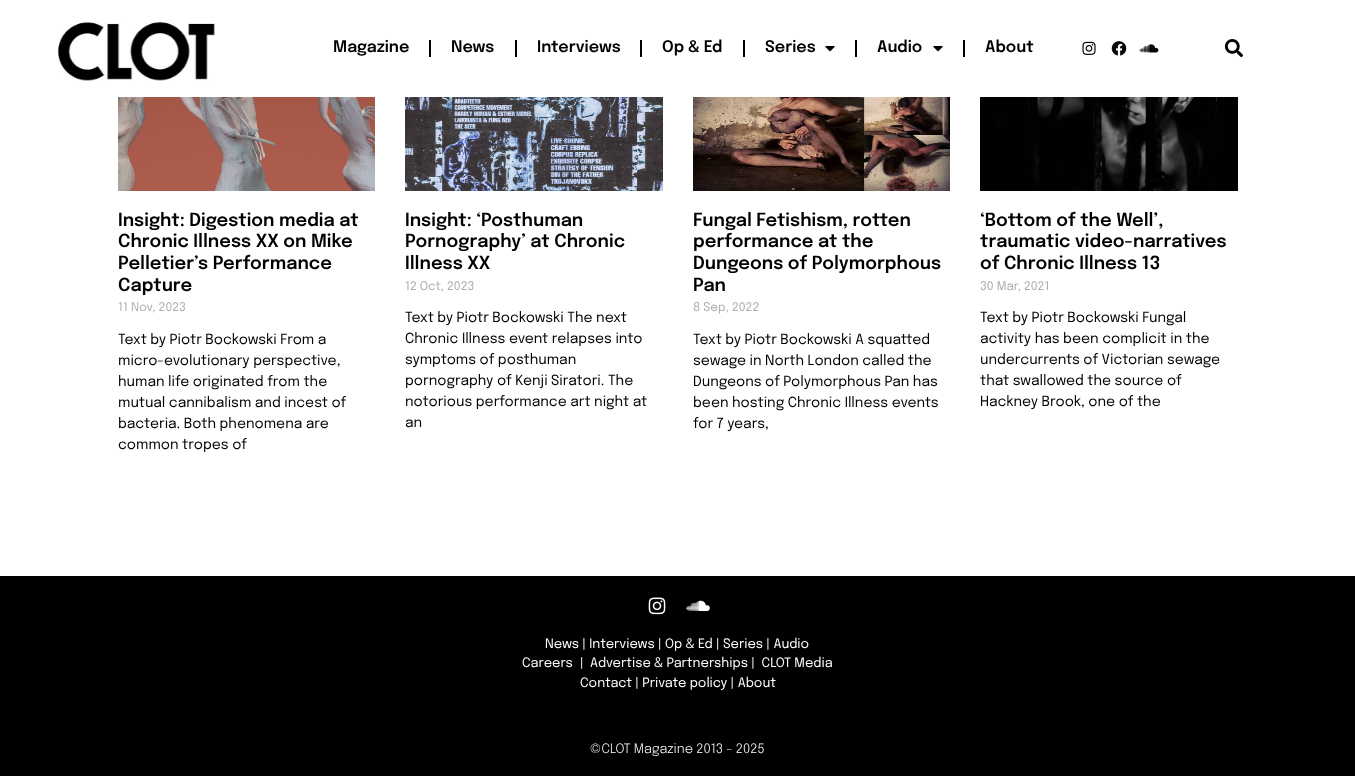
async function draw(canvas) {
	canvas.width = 1355;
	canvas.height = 776;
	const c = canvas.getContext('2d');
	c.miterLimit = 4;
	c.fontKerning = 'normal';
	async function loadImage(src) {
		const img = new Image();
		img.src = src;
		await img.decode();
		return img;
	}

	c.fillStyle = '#fff';
	c.fillRect(0, 0, 1355, 776);
	c.drawImage(await loadImage('img1.png'), 58, 21, 157, 60);
	c.font = '600 16px Epilogue';
	c.fillStyle = '#000';
	c.fillText('Magazine', 333, 52);
	c.fillRect(429, 40, 2, 17);
	c.fillText('News', 451, 52);
	c.fillRect(515, 40, 2, 17);
	c.fillText('Interviews', 537, 52);
	c.fillRect(640, 40, 2, 17);
	c.fillText('Op & Ed', 662, 52);
	c.fillRect(743, 40, 2, 17);
	c.fillText('Series', 765, 52);
	c.drawImage(await loadImage('img2.png'), 825, 46, 10, 6);
	c.fillRect(855, 40, 2, 17);
	c.fillText('Audio', 877, 52);
	c.drawImage(await loadImage('img2.png'), 933, 46, 10, 6);
	c.fillRect(963, 40, 2, 17);
	c.fillText('About', 985, 52);
	c.drawImage(await loadImage('img3.png'), 1082, 41, 14, 14);
	c.drawImage(await loadImage('img4.png'), 1111, 41, 16, 15);
	c.drawImage(await loadImage('img5.png'), 1139, 44, 20, 9);
	c.drawImage(await loadImage('img6.png'), 1224, 39, 19, 19);
	c.drawImage(await loadImage('img7.png'), 118, 97, 257, 94);
	c.font = '600 18px Epilogue';
	for (const [text, x, y] of [
		['Insight: Digestion media at', 118, 226],
		['Chronic Illness XX on Mike', 118, 247],
		['Pelletier’s Performance', 118, 269],
		['Capture', 118, 291],
	]) {
		c.fillText(text, x, y);
	}
	c.font = '12px Epilogue';
	c.fillStyle = '#adadad';
	c.fillText('11 Nov, 2023', 118, 311);
	c.font = '14px Epilogue';
	c.fillStyle = '#000';
	for (const [text, x, y] of [
		['Text by Piotr Bockowski From a', 118, 344],
		['micro-evolutionary perspective,', 118, 365],
		['human life originated from the', 118, 386],
		['mutual cannibalism and incest of', 118, 407],
		['bacteria. Both phenomena are', 118, 428],
		['common tropes of', 118, 449],
	]) {
		c.fillText(text, x, y);
	}
	c.drawImage(await loadImage('img8.png'), 405, 97, 258, 94);
	c.font = '600 18px Epilogue';
	for (const [text, x, y] of [
		['Insight: ‘Posthuman', 405, 226],
		['Pornography’ at Chronic', 405, 247],
		['Illness XX', 405, 269],
	]) {
		c.fillText(text, x, y);
	}
	c.font = '12px Epilogue';
	c.fillStyle = '#adadad';
	c.fillText('12 Oct, 2023', 405, 290);
	c.font = '14px Epilogue';
	c.fillStyle = '#000';
	for (const [text, x, y] of [
		['Text by Piotr Bockowski The next', 405, 322],
		['Chronic Illness event relapses into', 405, 343],
		['symptoms of posthuman', 405, 364],
		['pornography of Kenji Siratori. The', 405, 385],
		['notorious performance art night at', 405, 406],
		['an', 405, 427],
	]) {
		c.fillText(text, x, y);
	}
	c.drawImage(await loadImage('img9.png'), 693, 97, 257, 94);
	c.font = '600 18px Epilogue';
	for (const [text, x, y] of [
		['Fungal Fetishism, rotten', 693, 226],
		['performance at the', 693, 247],
		['Dungeons of Polymorphous', 693, 269],
		['Pan', 693, 291],
	]) {
		c.fillText(text, x, y);
	}
	c.font = '12px Epilogue';
	c.fillStyle = '#adadad';
	c.fillText('8 Sep, 2022', 693, 311);
	c.font = '14px Epilogue';
	c.fillStyle = '#000';
	for (const [text, x, y] of [
		['Text by Piotr Bockowski A squatted', 693, 344],
		['sewage in North London called the', 693, 365],
		['Dungeons of Polymorphous Pan has', 693, 386],
		['been hosting Chronic Illness events', 693, 407],
		['for 7 years,', 693, 428],
	]) {
		c.fillText(text, x, y);
	}
	c.drawImage(await loadImage('img10.png'), 980, 97, 258, 94);
	c.font = '600 18px Epilogue';
	for (const [text, x, y] of [
		['‘Bottom of the Well’,', 980, 226],
		['traumatic video-narratives', 980, 247],
		['of Chronic Illness 13', 980, 269],
	]) {
		c.fillText(text, x, y);
	}
	c.font = '12px Epilogue';
	c.fillStyle = '#adadad';
	c.fillText('30 Mar, 2021', 980, 290);
	c.font = '14px Epilogue';
	c.fillStyle = '#000';
	for (const [text, x, y] of [
		['Text by Piotr Bockowski Fungal', 980, 322],
		['activity has been complicit in the', 980, 343],
		['undercurrents of Victorian sewage', 980, 364],
		['that swallowed the source of', 980, 385],
		['Hackney Brook, one of the', 980, 406],
	]) {
		c.fillText(text, x, y);
	}
	c.fillRect(0, 576, 1355, 200);
	c.drawImage(await loadImage('img11.png'), 648, 597, 18, 18);
	c.drawImage(await loadImage('img12.png'), 686, 600, 24, 11);
	c.font = '13px Epilogue';
	c.fillStyle = '#fff';
	for (const [text, x, y] of [
		['News | Interviews | Op & Ed | Series | Audio', 545, 648],
		['Careers', 522, 667],
		['|', 580, 667],
		['Advertise & Partnerships |  CLOT Media', 590, 667],
		['Contact | Private policy | About', 580, 687],
	]) {
		c.fillText(text, x, y);
	}
	c.font = '300 13px Epilogue';
	c.fillText('©CLOT Magazine 2013 - 2025', 590, 753);
}

draw(document.querySelector('canvas'));
